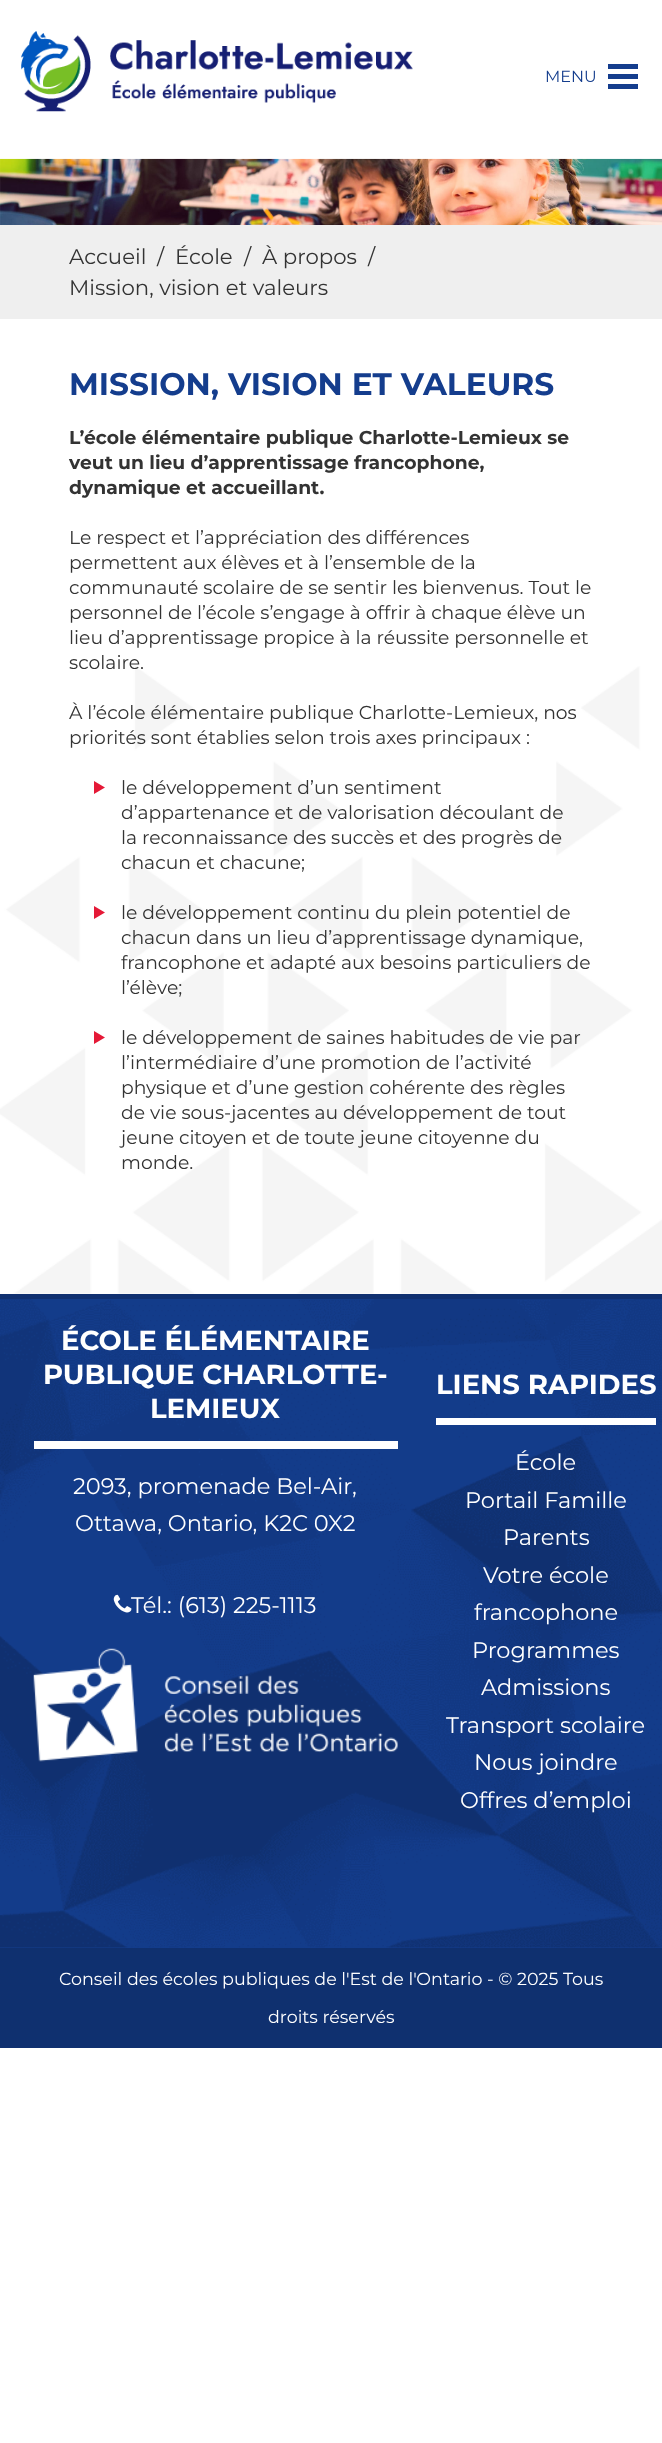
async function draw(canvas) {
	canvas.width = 662;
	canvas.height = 2443;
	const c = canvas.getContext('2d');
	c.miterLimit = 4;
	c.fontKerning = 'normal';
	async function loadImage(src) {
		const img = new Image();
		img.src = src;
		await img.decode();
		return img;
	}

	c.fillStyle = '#fff';
	c.fillRect(0, 0, 662, 2443);
	c.drawImage(await loadImage('img1.png'), 21, 31, 392, 81);
	c.font = '16px Montserrat';
	c.fillStyle = '#143d8d';
	c.fillText('MENU', 545, 82);
	for (const [x, y, w, h, color] of [
		[608, 64, 30, 5, '#143d8d'],
		[608, 74, 30, 5, '#143d8d'],
		[608, 84, 30, 5, '#143d8d'],
	]) {
		c.fillStyle = color;
		c.fillRect(x, y, w, h);
	}
	c.drawImage(await loadImage('img2.png'), 0, 158, 662, 67);
	c.fillStyle = '#efefef';
	c.fillRect(0, 225, 662, 94);
	c.font = '21.25px Montserrat';
	c.fillStyle = '#333';
	for (const [text, x, y] of [
		['Accueil', 69, 264],
		['/', 157, 264],
		['École', 175, 264],
		['/', 244, 264],
		['À propos', 262, 264],
		['/', 368, 264],
		['Mission, vision et valeurs', 69, 295],
	]) {
		c.fillText(text, x, y);
	}
	c.drawImage(await loadImage('img3.png'), 0, 666, 662, 628);
	c.font = 'bold 31.25px Montserrat';
	c.fillStyle = '#143d8d';
	c.fillText('MISSION, VISION ET VALEURS', 69, 395);
	c.font = 'bold 18.75px Montserrat';
	c.fillStyle = '#333';
	for (const [text, x, y] of [
		['L’école élémentaire publique Charlotte-Lemieux se', 69, 444],
		['veut un lieu d’apprentissage francophone,', 69, 469],
		['dynamique et accueillant.', 69, 494],
	]) {
		c.fillText(text, x, y);
	}
	c.font = '18.75px Montserrat';
	for (const [text, x, y] of [
		['Le respect et l’appréciation des différences', 69, 544],
		['permettent aux élèves et à l’ensemble de la', 69, 569],
		['communauté scolaire de se sentir les bienvenus. Tout le', 69, 594],
		['personnel de l’école s’engage à offrir à chaque élève un', 69, 619],
		['lieu d’apprentissage propice à la réussite personnelle et', 69, 644],
		['scolaire.', 69, 669],
		['À l’école élémentaire publique Charlotte-Lemieux, nos', 69, 719],
		['priorités sont établies selon trois axes principaux :', 69, 744],
	]) {
		c.fillText(text, x, y);
	}
	c.fillStyle = '#e51937';
	c.beginPath();
	c.moveTo(94, 794);
	c.lineTo(94, 781);
	c.lineTo(105, 787.5);
	c.closePath();
	c.fill();
	c.fillStyle = '#333';
	for (const [text, x, y] of [
		['le développement d’un sentiment', 121, 794],
		['d’appartenance et de valorisation découlant de', 121, 819],
		['la reconnaissance des succès et des progrès de', 121, 844],
		['chacun et chacune;', 121, 869],
	]) {
		c.fillText(text, x, y);
	}
	c.fillStyle = '#e51937';
	c.beginPath();
	c.moveTo(94, 919);
	c.lineTo(94, 906);
	c.lineTo(105, 912.5);
	c.closePath();
	c.fill();
	c.fillStyle = '#333';
	for (const [text, x, y] of [
		['le développement continu du plein potentiel de', 121, 919],
		['chacun dans un lieu d’apprentissage dynamique,', 121, 944],
		['francophone et adapté aux besoins particuliers de', 121, 969],
		['l’élève;', 121, 994],
	]) {
		c.fillText(text, x, y);
	}
	c.fillStyle = '#e51937';
	c.beginPath();
	c.moveTo(94, 1044);
	c.lineTo(94, 1031);
	c.lineTo(105, 1037.5);
	c.closePath();
	c.fill();
	c.fillStyle = '#333';
	for (const [text, x, y] of [
		['le développement de saines habitudes de vie par', 121, 1044],
		['l’intermédiaire d’une promotion de l’activité', 121, 1069],
		['physique et d’une gestion cohérente des règles', 121, 1094],
		['de vie sous-jacentes au développement de tout', 121, 1119],
		['jeune citoyen et de toute jeune citoyenne du', 121, 1144],
		['monde.', 121, 1169],
	]) {
		c.fillText(text, x, y);
	}
	c.fillStyle = '#103070';
	c.fillRect(0, 1294, 662, 5);
	c.fillStyle = '#143d8d';
	c.fillRect(0, 1299, 662, 649);
	c.drawImage(await loadImage('img4.png'), 0, 1299, 662, 649);
	c.fillStyle = '#fff';
	c.fillRect(34, 1441, 364, 8);
	c.font = 'bold 27.5px Montserrat';
	for (const [text, x, y] of [
		['ÉCOLE ÉLÉMENTAIRE', 61, 1350],
		['PUBLIQUE CHARLOTTE-', 43, 1384],
		['LEMIEUX', 150, 1418],
	]) {
		c.fillText(text, x, y);
	}
	c.font = '22.5px Montserrat';
	c.fillText('2093, promenade Bel-Air,', 73, 1494);
	c.fillText('Ottawa, Ontario, K2C 0X2', 75, 1531);
	c.drawImage(await loadImage('img5.png'), 113, 1594, 19, 19);
	c.fillText('Tél.: (613) 225-1113', 131, 1613);
	c.drawImage(await loadImage('img6.png'), 33, 1648, 365, 114);
	c.fillRect(436, 1418, 220, 7);
	c.font = 'bold 27.5px Montserrat';
	c.fillText('LIENS RAPIDES', 436, 1394);
	c.font = '22.5px Montserrat';
	for (const [text, x, y] of [
		['École', 515, 1470],
		['Portail Famille', 465, 1508],
		['Parents', 503, 1545],
		['Votre école', 483, 1583],
		['francophone', 474, 1620],
		['Programmes', 472, 1658],
		['Admissions', 481, 1695],
		['Transport scolaire', 446, 1733],
		['Nous joindre', 474, 1770],
		['Offres d’emploi', 460, 1808],
	]) {
		c.fillText(text, x, y);
	}
	c.fillStyle = '#0f306f';
	c.fillRect(0, 1948, 662, 100);
	c.font = '17.5px Montserrat';
	c.fillStyle = '#fff';
	c.fillText('Conseil des écoles publiques de l\'Est de l\'Ontario - © 2025 Tous', 59, 1985);
	c.fillText('droits réservés', 268, 2023);
}

draw(document.querySelector('canvas'));
